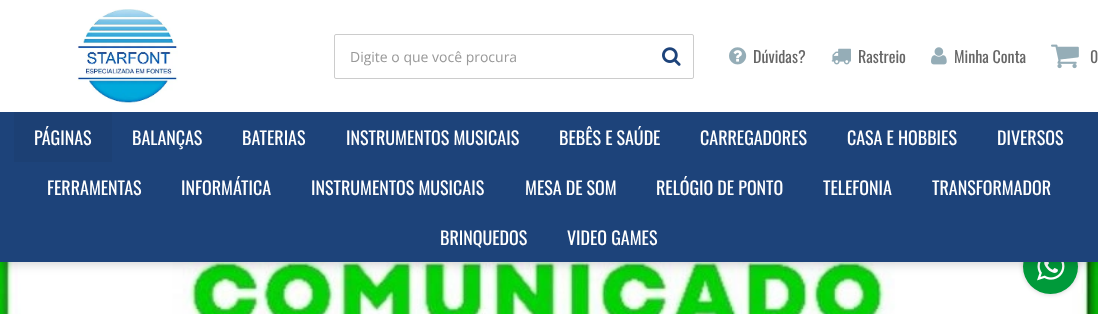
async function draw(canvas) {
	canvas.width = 1098;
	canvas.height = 314;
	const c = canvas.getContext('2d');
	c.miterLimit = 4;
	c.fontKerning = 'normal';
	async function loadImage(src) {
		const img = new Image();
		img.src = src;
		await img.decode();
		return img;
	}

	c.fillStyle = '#fff';
	c.fillRect(0, 0, 1098, 314);
	c.drawImage(await loadImage('img7.png'), 0, 262, 1098, 52);
	c.fillStyle = '#00000033';
	c.filter = 'blur(2.5px)';
	c.beginPath();
	c.roundRect(1023, 239, 55, 55, 27.5);
	c.fill();
	c.filter = 'none';
	c.fillStyle = '#009a3a';
	c.beginPath();
	c.arc(1050.5, 266.5, 27.5, 0, 2 * Math.PI);
	c.fill();
	c.drawImage(await loadImage('img8.png'), 1037, 262, 28, 19);
	c.fillStyle = '#00000026';
	c.filter = 'blur(5px)';
	c.beginPath();
	c.rect(0, 3, 1098, 262);
	c.fill();
	c.filter = 'none';
	c.fillStyle = '#fff';
	c.fillRect(0, 0, 1098, 112);
	c.drawImage(await loadImage('img1.png'), 77, 9, 101, 96);
	c.beginPath();
	c.roundRect(334.5, 34.5, 359, 44, 1.5);
	c.strokeStyle = '#ccc';
	c.stroke();
	c.font = '14px Open Sans';
	c.fillStyle = '#999';
	c.fillText('Digite o que você procura', 350, 62);
	c.drawImage(await loadImage('img2.png'), 662, 47, 19, 19);
	c.drawImage(await loadImage('img3.png'), 729, 47, 18, 18);
	c.font = '16px Oswald';
	c.fillStyle = '#666';
	c.fillText('Dúvidas?', 753, 63);
	c.drawImage(await loadImage('img4.png'), 831, 48, 20, 17);
	c.fillText('Rastreio', 858, 63);
	c.drawImage(await loadImage('img5.png'), 931, 47, 16, 18);
	c.fillText('Minha Conta', 954, 63);
	c.drawImage(await loadImage('img6.png'), 1051, 44, 28, 25);
	c.fillText('0', 1090, 63);
	c.fillStyle = '#1d437a';
	c.fillRect(0, 112, 1098, 150);
	c.fillStyle = '#1c4074';
	c.fillRect(14, 112, 98, 50);
	c.font = '18px Oswald';
	c.fillStyle = '#fff';
	for (const [text, x, y] of [
		['PÁGINAS', 34, 145],
		['BALANÇAS', 132, 145],
		['BATERIAS', 242, 145],
		['INSTRUMENTOS MUSICAIS', 346, 145],
		['BEBÊS E SAÚDE', 559, 145],
		['CARREGADORES', 700, 145],
		['CASA E HOBBIES', 847, 145],
		['DIVERSOS', 997, 145],
		['FERRAMENTAS', 47, 195],
		['INFORMÁTICA', 181, 195],
		['INSTRUMENTOS MUSICAIS', 311, 195],
		['MESA DE SOM', 525, 195],
		['RELÓGIO DE PONTO', 656, 195],
		['TELEFONIA', 823, 195],
		['TRANSFORMADOR', 932, 195],
		['BRINQUEDOS', 440, 245],
		['VIDEO GAMES', 567, 245],
	]) {
		c.fillText(text, x, y);
	}
}

draw(document.querySelector('canvas'));
